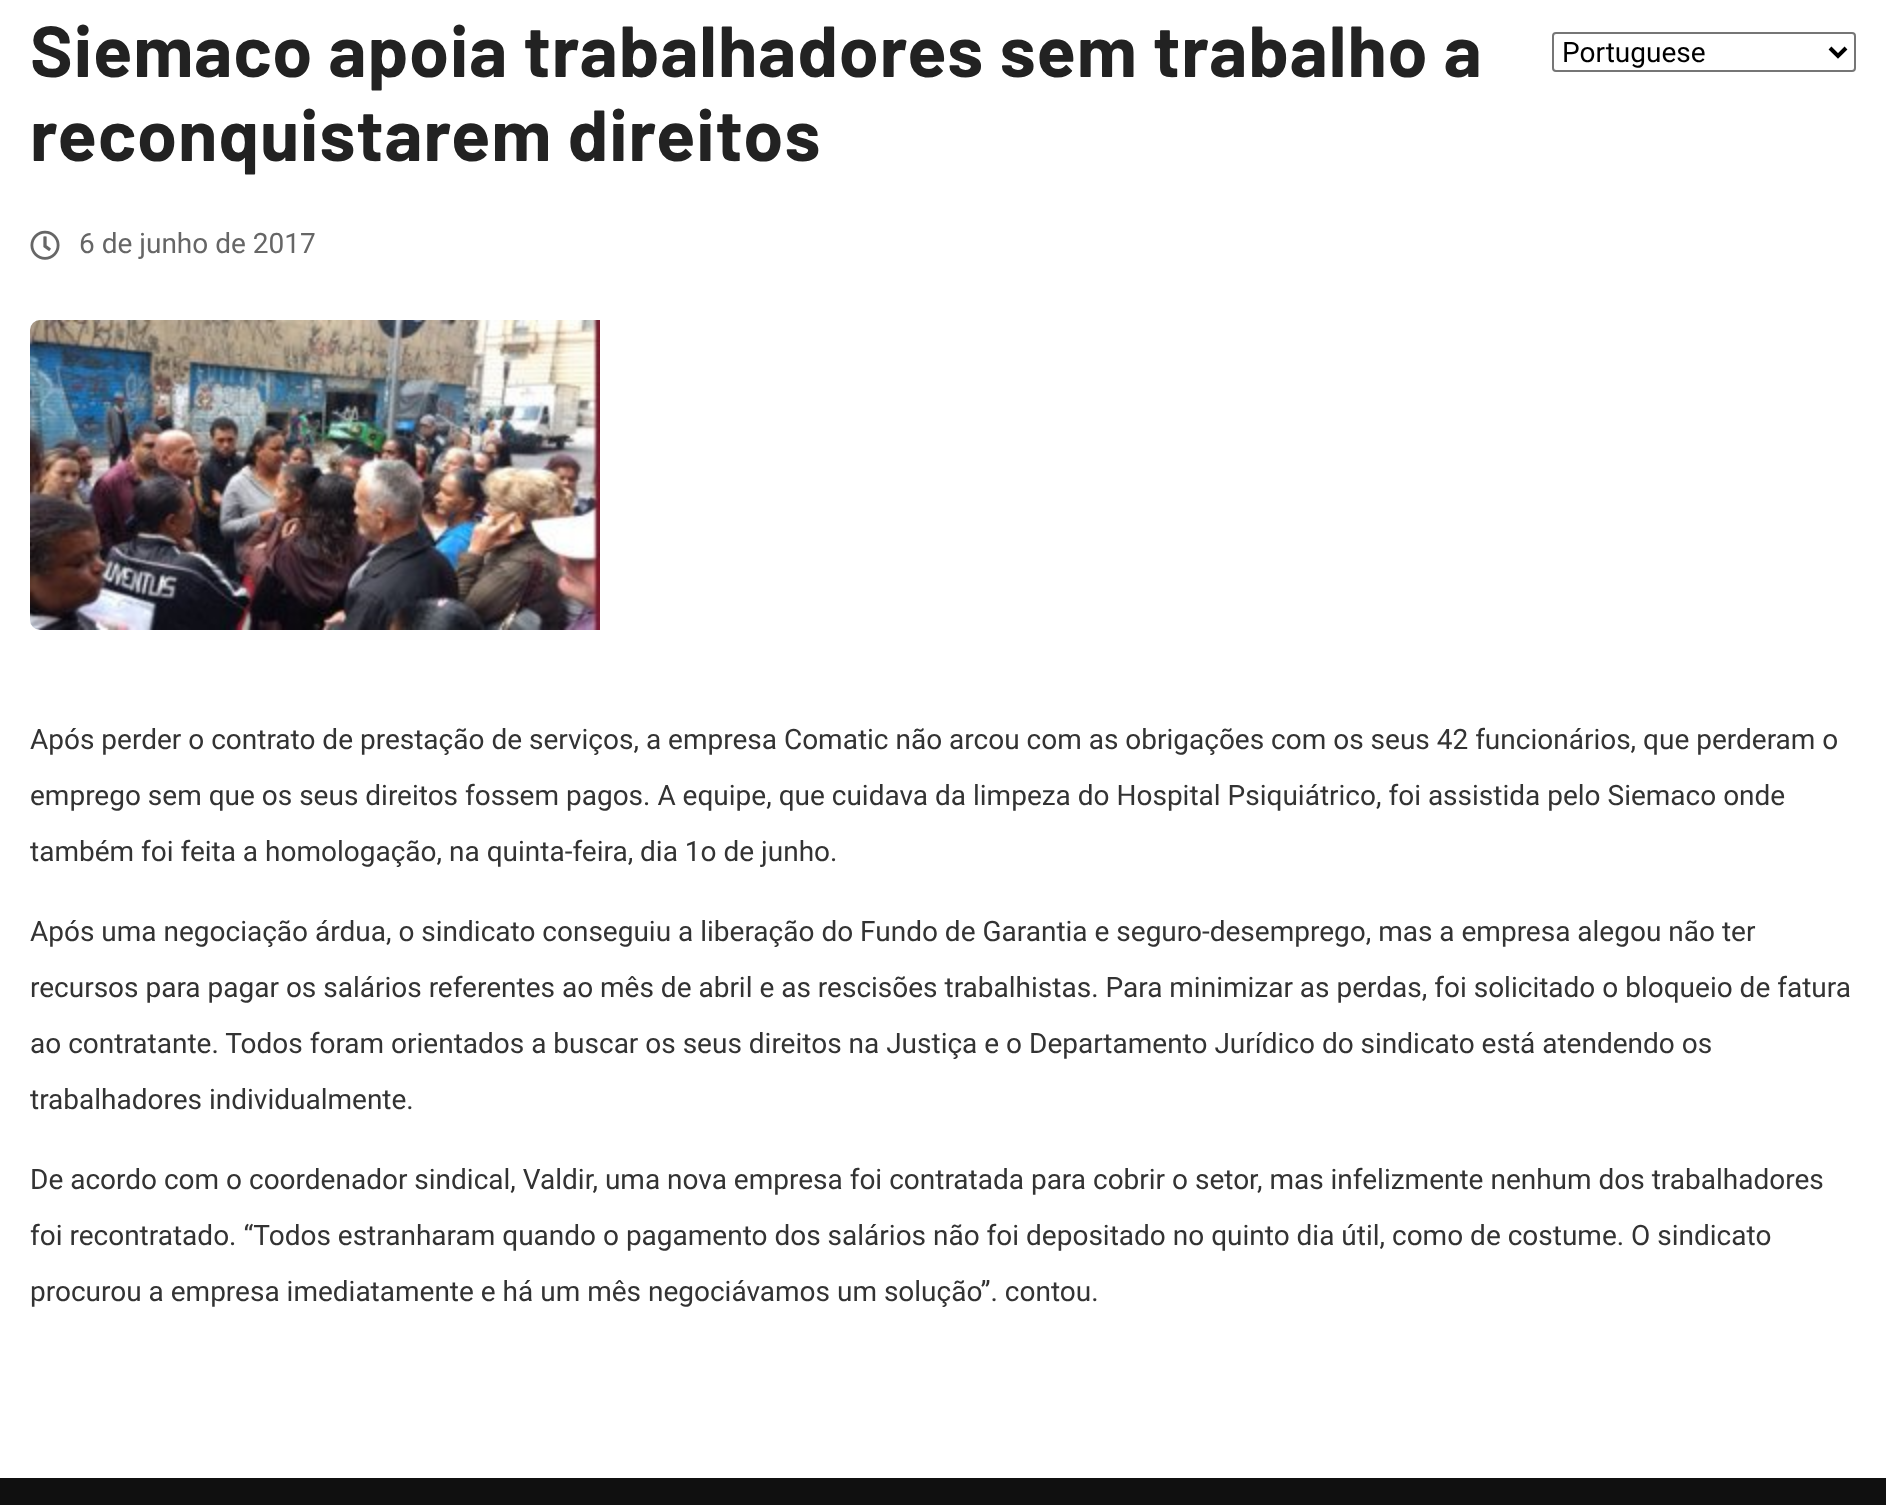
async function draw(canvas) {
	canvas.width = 1886;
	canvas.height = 1505;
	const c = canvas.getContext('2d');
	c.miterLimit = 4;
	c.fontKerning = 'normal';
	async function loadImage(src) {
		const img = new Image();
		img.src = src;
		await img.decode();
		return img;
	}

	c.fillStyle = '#fff';
	c.fillRect(0, 0, 1886, 1505);
	c.letterSpacing = '0.9px';
	c.font = 'bold 72px Barlow';
	c.fillStyle = '#222';
	c.fillText('Siemaco apoia trabalhadores sem trabalho a', 30, 77);
	c.fillText('reconquistarem direitos', 30, 161);
	c.drawImage(await loadImage('img1.png'), 30, 230, 30, 30);
	c.letterSpacing = '0px';
	c.font = '28px Roboto';
	c.fillStyle = '#666';
	c.fillText('6 de junho de 2017', 79, 253);
	c.drawImage(await loadImage('img2.png'), 30, 320, 570, 310);
	c.fillStyle = '#333';
	for (const [text, x, y] of [
		['Após perder o contrato de prestação de serviços, a empresa Comatic não arcou com as obrigações com os seus 42 funcionários, que perderam o', 30, 749],
		['emprego sem que os seus direitos fossem pagos. A equipe, que cuidava da limpeza do Hospital Psiquiátrico, foi assistida pelo Siemaco onde', 30, 805],
		['também foi feita a homologação, na quinta-feira, dia 1o de junho.', 30, 861],
		['Após uma negociação árdua, o sindicato conseguiu a liberação do Fundo de Garantia e seguro-desemprego, mas a empresa alegou não ter', 30, 941],
		['recursos para pagar os salários referentes ao mês de abril e as rescisões trabalhistas. Para minimizar as perdas, foi solicitado o bloqueio de fatura', 30, 997],
		['ao contratante. Todos foram orientados a buscar os seus direitos na Justiça e o Departamento Jurídico do sindicato está atendendo os', 30, 1053],
		['trabalhadores individualmente.', 30, 1109],
		['De acordo com o coordenador sindical, Valdir, uma nova empresa foi contratada para cobrir o setor, mas infelizmente nenhum dos trabalhadores', 30, 1189],
		['foi recontratado. “Todos estranharam quando o pagamento dos salários não foi depositado no quinto dia útil, como de costume. O sindicato', 30, 1245],
		['procurou a empresa imediatamente e há um mês negociávamos um solução”. contou.', 30, 1301],
	]) {
		c.fillText(text, x, y);
	}
	c.fillStyle = '#101010';
	c.fillRect(0, 1478, 1886, 27);
	c.beginPath();
	c.roundRect(1553, 33, 302, 38, 3);
	c.strokeStyle = '#767676';
	c.lineWidth = 2;
	c.stroke();
	c.beginPath();
	c.moveTo(1830, 48);
	c.lineTo(1838, 56);
	c.lineTo(1846, 48);
	c.strokeStyle = '#000';
	c.lineWidth = 4;
	c.stroke();
	c.fillStyle = '#000';
	c.fillText('Portuguese', 1562, 62);
}

draw(document.querySelector('canvas'));
